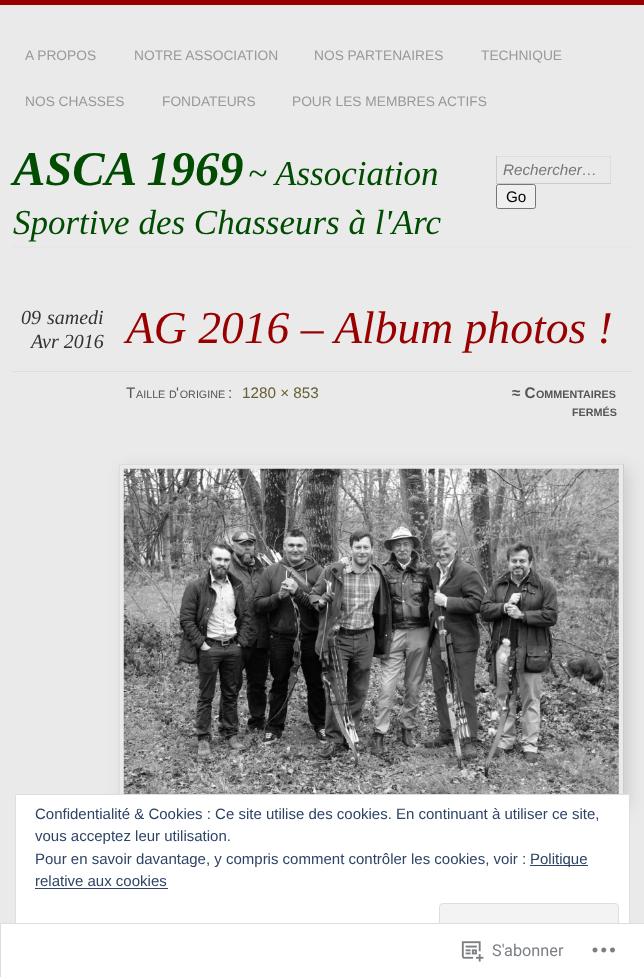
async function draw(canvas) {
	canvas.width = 644;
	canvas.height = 977;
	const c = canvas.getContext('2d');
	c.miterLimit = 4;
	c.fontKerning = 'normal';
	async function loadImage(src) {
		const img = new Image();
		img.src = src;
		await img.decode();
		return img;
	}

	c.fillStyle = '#eaeaea';
	c.fillRect(0, 0, 644, 977);
	c.fillStyle = '#900';
	c.fillRect(0, 0, 644, 5);
	c.font = '13.75px Liberation Sans';
	c.fillStyle = '#999';
	for (const [text, x, y] of [
		['A PROPOS', 25, 60],
		['NOTRE ASSOCIATION', 134, 60],
		['NOS PARTENAIRES', 314, 60],
		['TECHNIQUE', 481, 60],
		['NOS CHASSES', 25, 106],
		['FONDATEURS', 162, 106],
		['POUR LES MEMBRES ACTIFS', 292, 106],
	]) {
		c.fillText(text, x, y);
	}
	c.font = 'italic bold 48.5px Liberation Serif';
	c.fillStyle = '#004c00';
	c.fillText('ASCA 1969', 13, 185);
	c.font = 'italic 35px Liberation Serif';
	c.fillText('~ Association', 248, 185);
	c.fillText('Sportive des Chasseurs à l\'Arc', 13, 234);
	for (const [x, y, w, h, color] of [
		[496, 156, 115, 1, '#ddd'],
		[610, 156, 1, 28, '#ddd'],
		[496, 183, 115, 1, '#ccc'],
		[496, 156, 1, 28, '#ccc'],
	]) {
		c.fillStyle = color;
		c.fillRect(x, y, w, h);
	}
	c.font = 'italic 15.25px Liberation Sans';
	c.fillStyle = '#777';
	c.fillText('Rechercher…', 503, 175);
	c.fillStyle = '#efefef';
	c.beginPath();
	c.roundRect(496.5, 184.5, 39, 24, 2);
	c.fill();
	c.strokeStyle = '#767676';
	c.stroke();
	c.font = '15.25px Liberation Sans';
	c.fillStyle = '#000';
	c.fillText('Go', 506, 202);
	c.beginPath();
	c.moveTo(12.5, 247);
	c.lineTo(632.5, 247);
	c.strokeStyle = '#ddd';
	c.lineWidth = 1.2;
	c.setLineDash([1.25, 1.25]);
	c.stroke();
	c.font = 'italic 20px Liberation Serif';
	c.fillStyle = '#333';
	for (const [text, x, y] of [
		['09', 21, 324],
		['samedi', 47, 324],
		['Avr 2016', 31, 348],
	]) {
		c.fillText(text, x, y);
	}
	c.fillStyle = '#ddd';
	c.fillRect(13, 371, 620, 1);
	c.font = 'italic 45.6px Liberation Serif';
	c.fillStyle = '#900';
	c.fillText('AG 2016 – Album photos !', 126, 343);
	c.font = '15.25px Liberation Sans';
	c.fillStyle = '#555';
	c.fillText('T', 126, 398);
	c.font = '10.75px Liberation Sans';
	c.fillText('AILLE', 136, 398);
	c.font = '15.25px Liberation Sans';
	c.fillText('\'', 176, 398);
	c.fillText(':', 228, 398);
	c.fillStyle = '#675f34';
	c.fillText('1280 × 853', 242, 398);
	c.font = '10.75px Liberation Sans';
	c.fillStyle = '#555';
	c.fillText('D ORIGINE', 169, 398);
	c.font = 'bold 15.25px Liberation Sans';
	c.fillText('≈ C', 512, 398);
	c.font = 'bold 10.75px Liberation Sans';
	c.fillText('OMMENTAIRES', 536, 398);
	c.fillText('FERMÉS', 572, 416);
	c.save();
	c.beginPath();
	c.moveTo(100, 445);
	c.lineTo(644, 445);
	c.lineTo(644, 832);
	c.lineTo(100, 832);
	c.closePath();
	c.moveTo(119, 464);
	c.lineTo(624, 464);
	c.lineTo(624, 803);
	c.lineTo(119, 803);
	c.closePath();
	c.clip('evenodd');
	c.fillStyle = '#ccc';
	c.filter = 'blur(7.5px)';
	c.beginPath();
	c.rect(124, 469, 505, 339);
	c.fill();
	c.filter = 'none';
	c.restore();
	for (const [x, y, w, h, color] of [
		[119, 464, 505, 1, '#ddd'],
		[623, 464, 1, 330, '#ccc'],
		[119, 464, 1, 330, '#ddd'],
	]) {
		c.fillStyle = color;
		c.fillRect(x, y, w, h);
	}
	c.drawImage(await loadImage('img1.png'), 123, 468, 496, 326);
	c.fillStyle = '#fff';
	c.beginPath();
	c.rect(15.5, 794.5, 614, 168);
	c.fill();
	c.strokeStyle = '#dedede';
	c.lineWidth = 1;
	c.setLineDash([]);
	c.stroke();
	c.fillStyle = '#f3f3f3';
	c.beginPath();
	c.roundRect(439.5, 903.5, 179, 47, 3.5);
	c.fill();
	c.stroke();
	c.fillStyle = '#fffffffa';
	c.fillRect(0, 923, 644, 54);
	c.strokeStyle = '#dcdcdefa';
	c.strokeRect(0.5, 923.5, 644, 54);
	c.drawImage(await loadImage('img2.png'), 461, 941, 23, 21);
	c.font = '16.25px Roboto';
	c.fillStyle = '#7b7f84';
	c.fillText('S\'abonner', 492, 956);
	c.drawImage(await loadImage('img3.png'), 592, 947, 23, 6);
	c.font = '15px Liberation Sans';
	c.fillStyle = '#2e4467';
	for (const [text, x, y] of [
		['Confidentialité & Cookies : Ce site utilise des cookies. En continuant à utiliser ce site,', 35, 819],
		['vous acceptez leur utilisation.', 35, 841],
		['Pour en savoir davantage, y compris comment contrôler les cookies, voir :', 35, 864],
	]) {
		c.fillText(text, x, y);
	}
	c.fillRect(530, 865, 58, 1);
	c.fillText('Politique', 530, 864);
	c.fillText('relative aux cookies', 35, 886);
	c.fillRect(35, 888, 133, 1);
}

draw(document.querySelector('canvas'));
